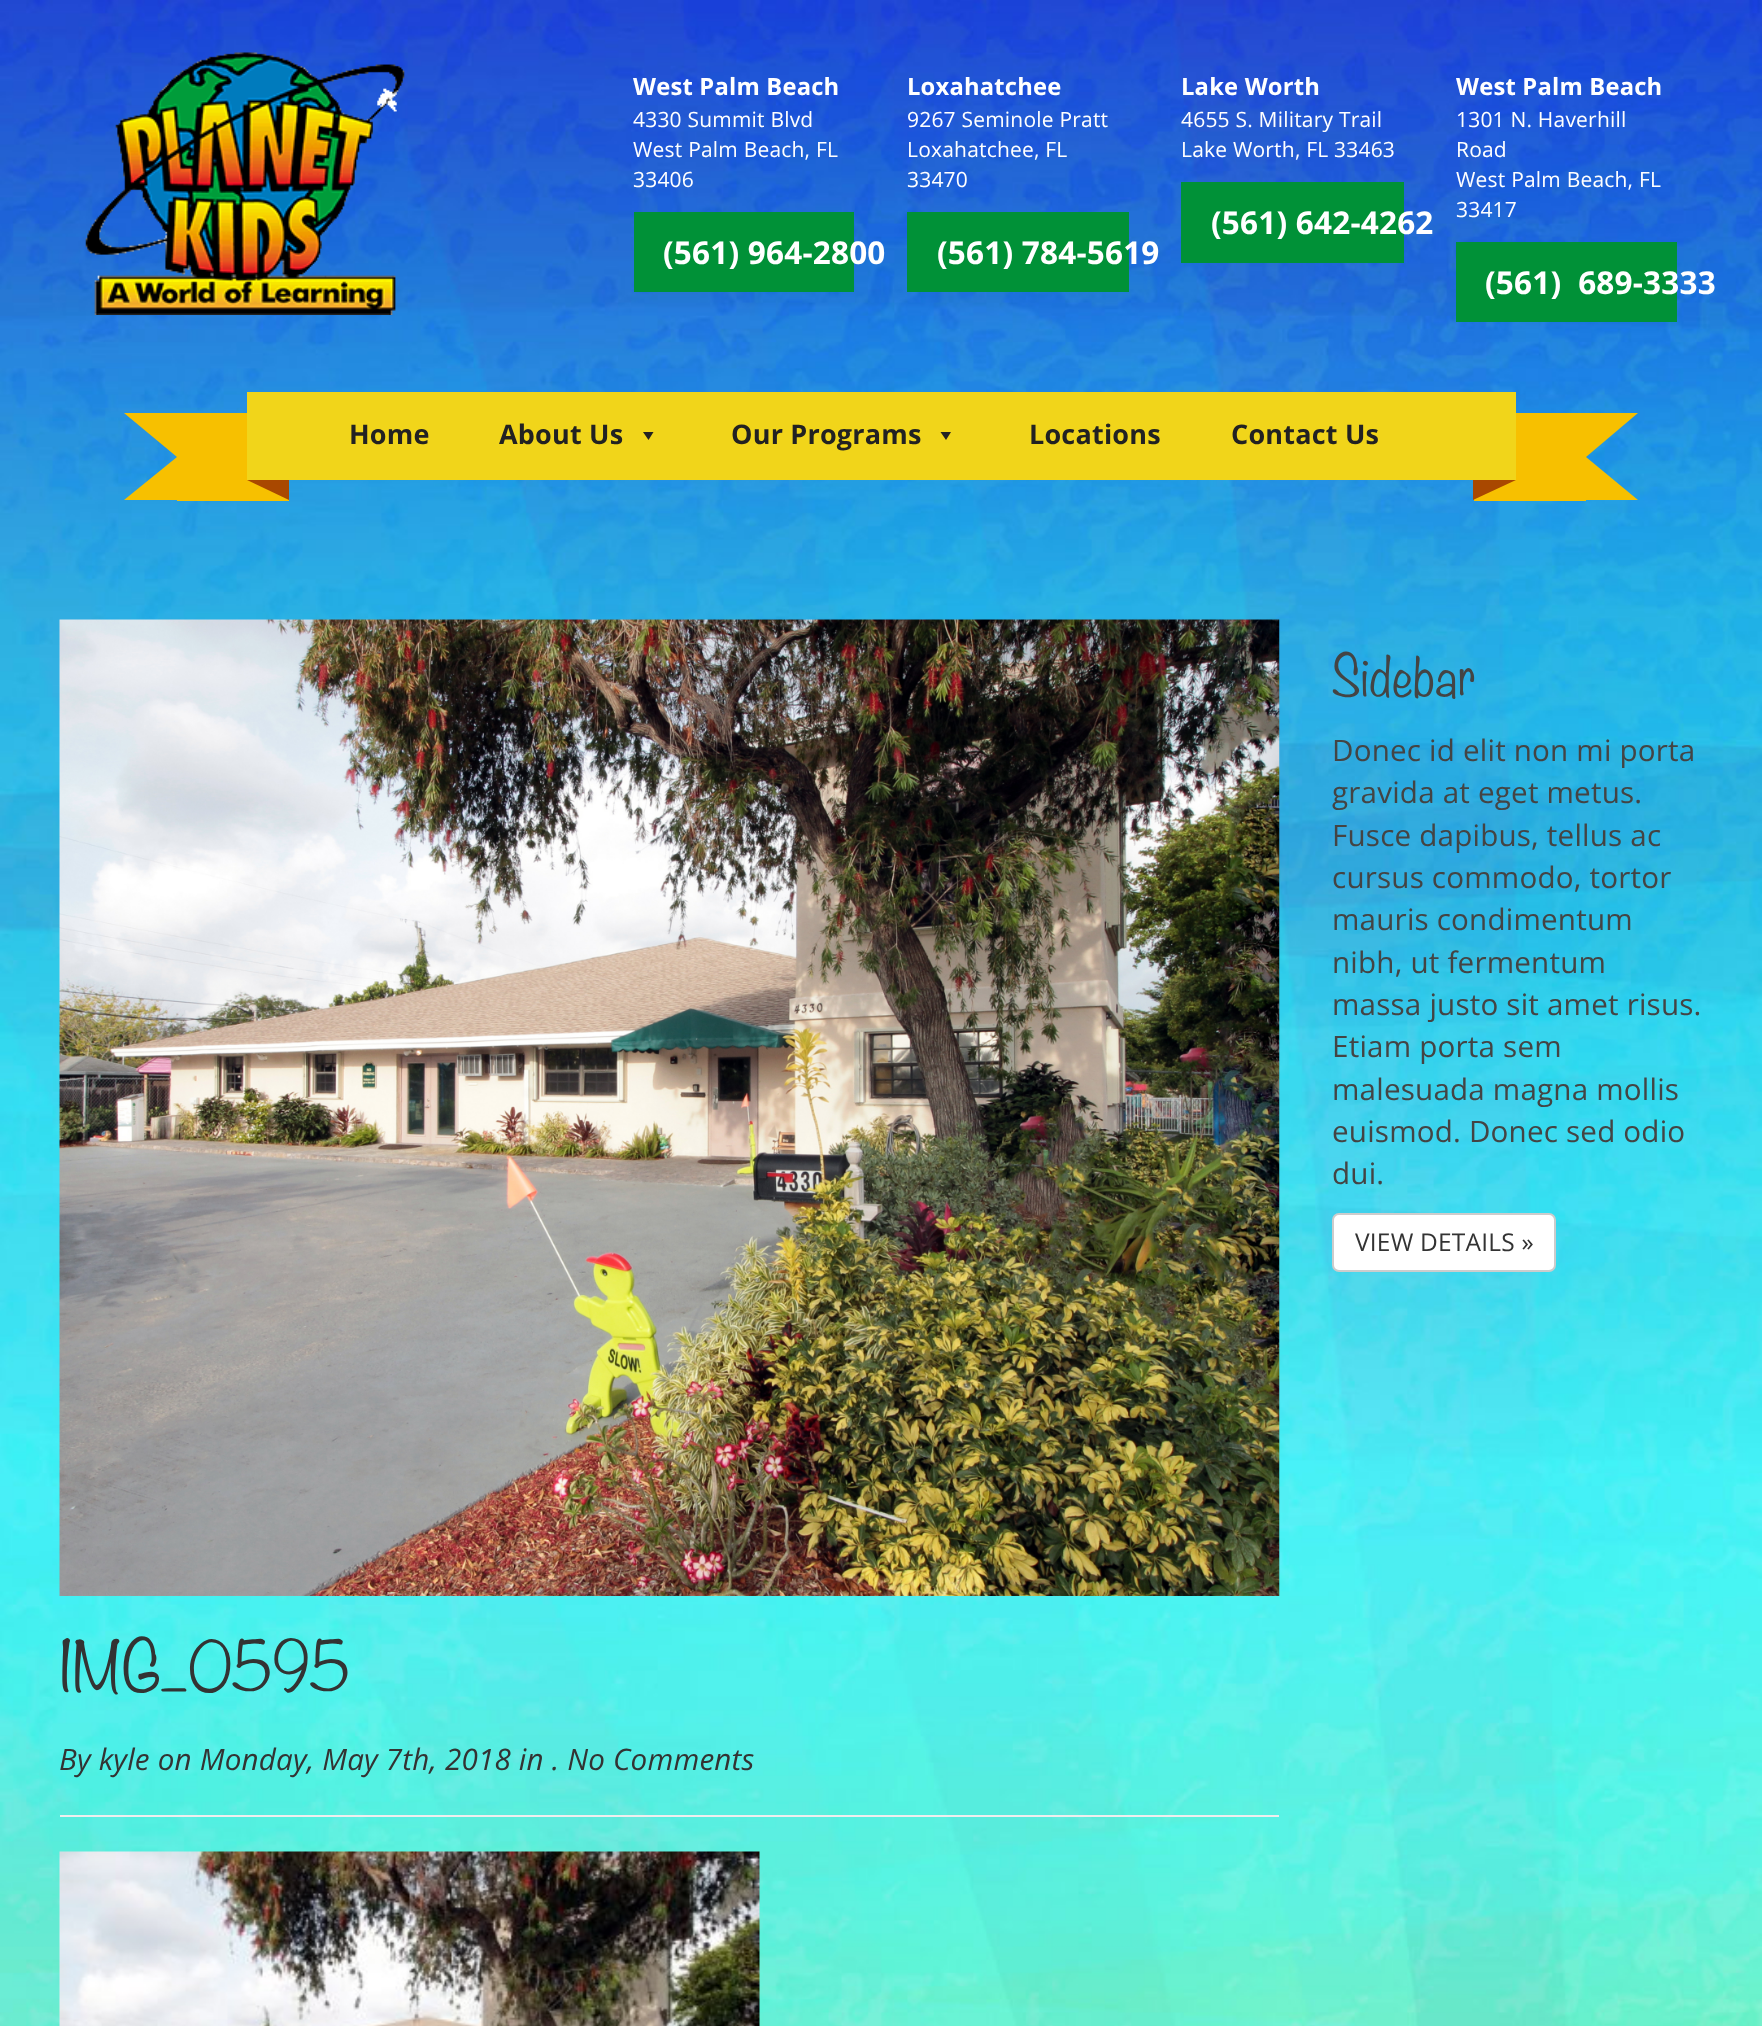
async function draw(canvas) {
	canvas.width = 1762;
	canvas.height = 2026;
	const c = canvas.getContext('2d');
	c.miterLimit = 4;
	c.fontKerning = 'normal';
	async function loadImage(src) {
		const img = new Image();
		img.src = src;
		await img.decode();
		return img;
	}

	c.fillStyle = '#fff';
	c.fillRect(0, 0, 1762, 2026);
	c.drawImage(await loadImage('img1.png'), 0, 0, 1762, 2026);
	c.drawImage(await loadImage('img2.png'), 85, 52, 320, 263);
	c.letterSpacing = '0.2px';
	c.font = 'bold 23.75px Open Sans';
	c.fillText('West Palm Beach', 633, 95);
	c.font = '21px Open Sans';
	for (const [text, x, y] of [
		['4330 Summit Blvd', 633, 127],
		['West Palm Beach, FL', 633, 157],
		['33406', 633, 187],
	]) {
		c.fillText(text, x, y);
	}
	c.fillStyle = '#009137';
	c.fillRect(634, 212, 220, 80);
	c.font = 'bold 31.5px Open Sans';
	c.fillStyle = '#fff';
	c.fillText('(561) 964-2800', 663, 264);
	c.font = 'bold 23.75px Open Sans';
	c.fillText('Loxahatchee', 907, 95);
	c.font = '21px Open Sans';
	for (const [text, x, y] of [
		['9267 Seminole Pratt', 907, 127],
		['Loxahatchee, FL', 907, 157],
		['33470', 907, 187],
	]) {
		c.fillText(text, x, y);
	}
	c.fillStyle = '#009137';
	c.fillRect(907, 212, 222, 80);
	c.font = 'bold 31.5px Open Sans';
	c.fillStyle = '#fff';
	c.fillText('(561) 784-5619', 937, 264);
	c.font = 'bold 23.75px Open Sans';
	c.fillText('Lake Worth', 1181, 95);
	c.font = '21px Open Sans';
	c.fillText('4655 S. Military Trail', 1181, 127);
	c.fillText('Lake Worth, FL 33463', 1181, 157);
	c.fillStyle = '#009137';
	c.fillRect(1181, 182, 223, 81);
	c.font = 'bold 31.5px Open Sans';
	c.fillStyle = '#fff';
	c.fillText('(561) 642-4262', 1211, 234);
	c.font = 'bold 23.75px Open Sans';
	c.fillText('West Palm Beach', 1456, 95);
	c.font = '21px Open Sans';
	for (const [text, x, y] of [
		['1301 N. Haverhill', 1456, 127],
		['Road', 1456, 157],
		['West Palm Beach, FL', 1456, 187],
		['33417', 1456, 217],
	]) {
		c.fillText(text, x, y);
	}
	c.fillStyle = '#009137';
	c.fillRect(1456, 242, 221, 80);
	c.font = 'bold 31.5px Open Sans';
	c.fillStyle = '#fff';
	c.fillText('(561)  689-3333', 1485, 294);
	c.fillStyle = '#f7c000';
	c.fillRect(177, 413, 112, 88);
	c.fillStyle = '#a94800';
	c.beginPath();
	c.moveTo(247, 392);
	c.lineTo(289, 412);
	c.lineTo(289, 500);
	c.lineTo(247, 480);
	c.closePath();
	c.fill();
	c.fillStyle = '#f7c000';
	c.fillRect(1474, 413, 112, 88);
	c.fillStyle = '#a94800';
	c.beginPath();
	c.moveTo(1473, 412);
	c.lineTo(1516, 392);
	c.lineTo(1516, 480);
	c.lineTo(1473, 500);
	c.closePath();
	c.fill();
	c.fillStyle = '#f7c000';
	c.beginPath();
	c.moveTo(177, 413);
	c.lineTo(177, 457);
	c.lineTo(124, 413);
	c.closePath();
	c.fill();
	c.beginPath();
	c.moveTo(177, 457);
	c.lineTo(177, 500);
	c.lineTo(124, 500);
	c.closePath();
	c.fill();
	c.fillStyle = '#f1d51a';
	c.fillRect(247, 392, 1269, 88);
	c.font = 'bold 27px Open Sans';
	c.fillStyle = '#222';
	c.fillText('Home', 349, 444);
	c.fillText('About Us', 499, 444);
	c.beginPath();
	c.moveTo(653.5, 432);
	c.lineTo(648.5, 440);
	c.lineTo(643, 432);
	c.closePath();
	c.fill();
	c.fillText('Our Programs', 731, 444);
	c.beginPath();
	c.moveTo(951, 432);
	c.lineTo(946, 440);
	c.lineTo(940.5, 432);
	c.closePath();
	c.fill();
	c.fillText('Locations', 1029, 444);
	c.fillText('Contact Us', 1231, 444);
	c.fillStyle = '#f7c000';
	c.beginPath();
	c.moveTo(1586, 457);
	c.lineTo(1586, 413);
	c.lineTo(1638, 413);
	c.closePath();
	c.fill();
	c.beginPath();
	c.moveTo(1586, 500);
	c.lineTo(1586, 457);
	c.lineTo(1638, 500);
	c.closePath();
	c.fill();
	c.font = '52.5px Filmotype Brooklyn';
	c.fillStyle = '#444';
	c.fillText('Sidebar', 1332, 695);
	c.font = '29.6px Open Sans';
	for (const [text, x, y] of [
		['Donec id elit non mi porta', 1332, 761],
		['gravida at eget metus.', 1332, 803],
		['Fusce dapibus, tellus ac', 1332, 846],
		['cursus commodo, tortor', 1332, 888],
		['mauris condimentum', 1332, 930],
		['nibh, ut fermentum', 1332, 973],
		['massa justo sit amet risus.', 1332, 1015],
		['Etiam porta sem', 1332, 1057],
		['malesuada magna mollis', 1332, 1100],
		['euismod. Donec sed odio', 1332, 1142],
		['dui.', 1332, 1184],
	]) {
		c.fillText(text, x, y);
	}
	c.fillStyle = '#fff';
	c.beginPath();
	c.roundRect(1333, 1214, 222, 57, 6);
	c.fill();
	c.strokeStyle = '#ccc';
	c.lineWidth = 2;
	c.stroke();
	c.font = '24.5px Open Sans';
	c.fillStyle = '#333';
	c.fillText('VIEW DETAILS »', 1355, 1251);
	c.fillStyle = '#eee';
	c.fillRect(60, 1815, 1219, 2);
	c.drawImage(await loadImage('img3.png'), 59, 619, 1221, 977);
	c.font = '64.75px Filmotype Brooklyn';
	c.fillStyle = '#333';
	c.fillText('IMG_0595', 59, 1690);
	c.font = 'italic 29.6px Open Sans';
	c.fillText('By kyle on Monday, May 7th, 2018 in . No Comments', 59, 1770);
	c.drawImage(await loadImage('img4.png'), 59, 1851, 701, 175);
}

draw(document.querySelector('canvas'));
